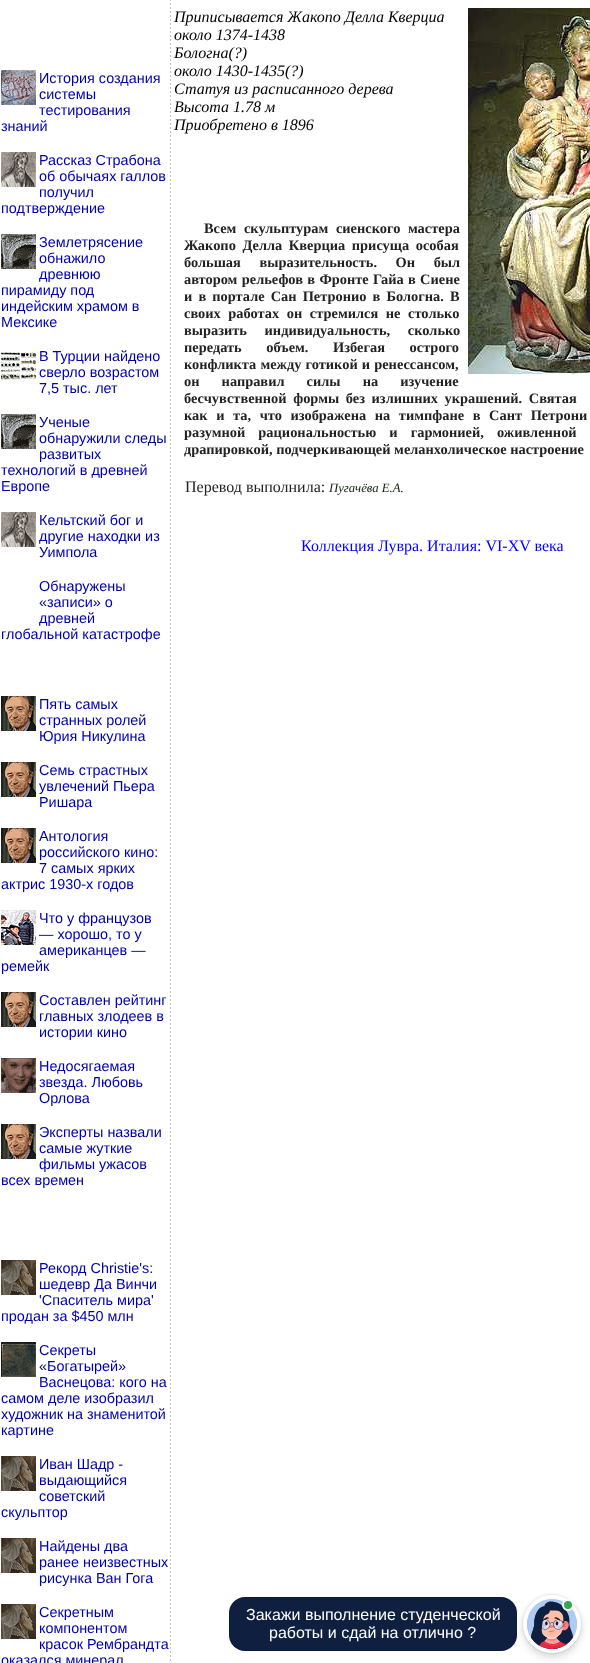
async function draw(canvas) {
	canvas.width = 590;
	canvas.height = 1663;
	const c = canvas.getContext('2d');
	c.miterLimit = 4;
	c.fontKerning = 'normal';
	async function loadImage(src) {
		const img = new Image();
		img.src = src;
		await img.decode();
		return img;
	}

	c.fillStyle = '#fff';
	c.fillRect(0, 0, 590, 1663);
	c.drawImage(await loadImage('img1.png'), 1, 70, 35, 35);
	c.font = '14.4px Liberation Sans';
	c.fillStyle = '#00a';
	for (const [text, x, y] of [
		['История создания', 39, 83],
		['системы', 39, 99],
		['тестирования', 39, 115],
		['знаний', 1, 131],
	]) {
		c.fillText(text, x, y);
	}
	c.drawImage(await loadImage('img2.png'), 1, 152, 35, 35);
	for (const [text, x, y] of [
		['Рассказ Страбона', 39, 165],
		['об обычаях галлов', 39, 181],
		['получил', 39, 197],
		['подтверждение', 1, 213],
	]) {
		c.fillText(text, x, y);
	}
	c.drawImage(await loadImage('img3.png'), 1, 234, 35, 35);
	for (const [text, x, y] of [
		['Землетрясение', 39, 247],
		['обнажило', 39, 263],
		['древнюю', 39, 279],
		['пирамиду под', 1, 295],
		['индейским храмом в', 1, 311],
		['Мексике', 1, 327],
	]) {
		c.fillText(text, x, y);
	}
	c.drawImage(await loadImage('img4.png'), 1, 352, 35, 28);
	for (const [text, x, y] of [
		['В Турции найдено', 39, 361],
		['сверло возрастом', 39, 377],
		['7,5 тыс. лет', 39, 393],
	]) {
		c.fillText(text, x, y);
	}
	c.drawImage(await loadImage('img3.png'), 1, 414, 35, 35);
	for (const [text, x, y] of [
		['Ученые', 39, 427],
		['обнаружили следы', 39, 443],
		['развитых', 39, 459],
		['технологий в древней', 1, 475],
		['Европе', 1, 491],
	]) {
		c.fillText(text, x, y);
	}
	c.drawImage(await loadImage('img2.png'), 1, 512, 35, 35);
	for (const [text, x, y] of [
		['Кельтский бог и', 39, 525],
		['другие находки из', 39, 541],
		['Уимпола', 39, 557],
		['Обнаружены', 39, 591],
		['«записи» о', 39, 607],
		['древней', 39, 623],
		['глобальной катастрофе', 1, 639],
	]) {
		c.fillText(text, x, y);
	}
	c.drawImage(await loadImage('img5.png'), 1, 696, 35, 35);
	for (const [text, x, y] of [
		['Пять самых', 39, 709],
		['странных ролей', 39, 725],
		['Юрия Никулина', 39, 741],
	]) {
		c.fillText(text, x, y);
	}
	c.drawImage(await loadImage('img5.png'), 1, 762, 35, 35);
	for (const [text, x, y] of [
		['Семь страстных', 39, 775],
		['увлечений Пьера', 39, 791],
		['Ришара', 39, 807],
	]) {
		c.fillText(text, x, y);
	}
	c.drawImage(await loadImage('img5.png'), 1, 828, 35, 35);
	for (const [text, x, y] of [
		['Антология', 39, 841],
		['российского кино:', 39, 857],
		['7 самых ярких', 39, 873],
		['актрис 1930-х годов', 1, 889],
	]) {
		c.fillText(text, x, y);
	}
	c.drawImage(await loadImage('img6.png'), 1, 910, 35, 35);
	for (const [text, x, y] of [
		['Что у французов', 39, 923],
		['— хорошо, то у', 39, 939],
		['американцев —', 39, 955],
		['ремейк', 1, 971],
	]) {
		c.fillText(text, x, y);
	}
	c.drawImage(await loadImage('img5.png'), 1, 992, 35, 35);
	for (const [text, x, y] of [
		['Составлен рейтинг', 39, 1005],
		['главных злодеев в', 39, 1021],
		['истории кино', 39, 1037],
	]) {
		c.fillText(text, x, y);
	}
	c.drawImage(await loadImage('img7.png'), 1, 1058, 35, 35);
	for (const [text, x, y] of [
		['Недосягаемая', 39, 1071],
		['звезда. Любовь', 39, 1087],
		['Орлова', 39, 1103],
	]) {
		c.fillText(text, x, y);
	}
	c.drawImage(await loadImage('img5.png'), 1, 1124, 35, 35);
	for (const [text, x, y] of [
		['Эксперты назвали', 39, 1137],
		['самые жуткие', 39, 1153],
		['фильмы ужасов', 39, 1169],
		['всех времен', 1, 1185],
	]) {
		c.fillText(text, x, y);
	}
	c.drawImage(await loadImage('img8.png'), 1, 1260, 35, 35);
	for (const [text, x, y] of [
		['Рекорд Christie\'s:', 39, 1273],
		['шедевр Да Винчи', 39, 1289],
		['\'Спаситель мира\'', 39, 1305],
		['продан за $450 млн', 1, 1321],
	]) {
		c.fillText(text, x, y);
	}
	c.drawImage(await loadImage('img9.png'), 1, 1342, 35, 35);
	for (const [text, x, y] of [
		['Секреты', 39, 1355],
		['«Богатырей»', 39, 1371],
		['Васнецова: кого на', 39, 1387],
		['самом деле изобразил', 1, 1403],
		['художник на знаменитой', 1, 1419],
		['картине', 1, 1435],
	]) {
		c.fillText(text, x, y);
	}
	c.drawImage(await loadImage('img8.png'), 1, 1456, 35, 35);
	for (const [text, x, y] of [
		['Иван Шадр -', 39, 1469],
		['выдающийся', 39, 1485],
		['советский', 39, 1501],
		['скульптор', 1, 1517],
	]) {
		c.fillText(text, x, y);
	}
	c.drawImage(await loadImage('img8.png'), 1, 1538, 35, 35);
	for (const [text, x, y] of [
		['Найдены два', 39, 1551],
		['ранее неизвестных', 39, 1567],
		['рисунка Ван Гога', 39, 1583],
	]) {
		c.fillText(text, x, y);
	}
	c.drawImage(await loadImage('img8.png'), 1, 1604, 35, 35);
	for (const [text, x, y] of [
		['Секретным', 39, 1617],
		['компонентом', 39, 1633],
		['красок Рембрандта', 39, 1649],
		['оказался минерал', 1, 1665],
	]) {
		c.fillText(text, x, y);
	}
	c.drawImage(await loadImage('img10.png'), 170, 0, 1, 1661);
	c.font = 'italic 16px Liberation Serif';
	c.fillStyle = '#000';
	c.fillText('Приписывается Жакопо Делла Кверциа', 174, 22);
	c.drawImage(await loadImage('img11.png'), 468, 8, 122, 366);
	for (const [text, x, y] of [
		['около 1374-1438', 174, 40],
		['Бологна(?)', 174, 58],
		['около 1430-1435(?)', 174, 76],
		['Статуя из расписанного дерева', 174, 94],
		['Высота 1.78 м', 174, 112],
		['Приобретено в 1896', 174, 130],
	]) {
		c.fillText(text, x, y);
	}
	c.wordSpacing = '4px';
	c.font = 'bold 14.4px Liberation Serif';
	c.fillStyle = '#222';
	c.fillText('Всем скульптурам сиенского мастера', 204, 233);
	c.wordSpacing = '3px';
	c.fillText('Жакопо Делла Кверциа присуща особая', 184, 250);
	c.wordSpacing = '15px';
	c.fillText('большая выразительность. Он был', 184, 267);
	c.wordSpacing = '0.75px';
	c.fillText('автором рельефов в Фронте Гайа в Сиене', 184, 284);
	c.wordSpacing = '2.5px';
	c.fillText('и в портале Сан Петронио в Бологна. В', 184, 301);
	c.wordSpacing = '4px';
	c.fillText('своих работах он стремился не столько', 184, 318);
	c.wordSpacing = '14px';
	c.fillText('выразить индивидуальность, сколько', 184, 335);
	c.wordSpacing = '21px';
	c.fillText('передать объем. Избегая острого', 184, 352);
	c.wordSpacing = '0.5px';
	c.fillText('конфликта между готикой и ренессансом,', 184, 369);
	c.wordSpacing = '18.5px';
	c.fillText('он направил силы на изучение', 184, 386);
	c.wordSpacing = '3px';
	c.fillText('бесчувственной формы без излишних украшений. Святая', 184, 403);
	c.wordSpacing = '5px';
	c.fillText('как и та, что изображена на тимпфане в Сант Петрони', 184, 420);
	c.wordSpacing = '9.5px';
	c.fillText('разумной рациональностью и гармонией, оживленной', 184, 437);
	c.wordSpacing = '0px';
	c.fillText('драпировкой, подчеркивающей меланхолическое настроение', 184, 454);
	c.font = '16px Liberation Serif';
	c.fillText('Перевод выполнила:', 185, 492);
	c.font = 'italic 12.75px Liberation Serif';
	c.fillStyle = '#121';
	c.fillText('Пугачёва Е.А.', 329, 492);
	c.font = '16px Liberation Serif';
	c.fillStyle = '#00f';
	c.fillText('Коллекция Лувра. Италия: VI-XV века', 301, 551);
	c.fillStyle = '#00000029';
	c.filter = 'blur(4px)';
	c.beginPath();
	c.roundRect(523, 1599, 58, 58, 29);
	c.fill();
	c.filter = 'none';
	c.fillStyle = '#0e1f40';
	c.beginPath();
	c.roundRect(229, 1597, 288, 54, 16);
	c.fill();
	c.beginPath();
	c.roundRect(229.5, 1597.5, 287, 53, 15.5);
	c.strokeStyle = '#0000001a';
	c.stroke();
	c.font = '16px Liberation Sans';
	c.fillStyle = '#fff';
	c.fillText('Закажи выполнение студенческой', 246, 1620);
	c.fillText('работы и сдай на отлично ?', 269, 1638);
	c.fillStyle = '#00000029';
	c.filter = 'blur(1px)';
	c.beginPath();
	c.roundRect(523, 1595, 58, 58, 29);
	c.fill();
	c.filter = 'none';
	c.beginPath();
	c.arc(552, 1624, 27, 0, 2 * Math.PI);
	c.strokeStyle = '#fff';
	c.lineWidth = 4;
	c.stroke();
	c.drawImage(await loadImage('img12.png'), 527, 1599, 50, 50);
	c.fillStyle = '#34a853';
	c.beginPath();
	c.arc(568, 1605, 5, 0, 2 * Math.PI);
	c.fill();
	c.lineWidth = 2;
	c.stroke();
}

draw(document.querySelector('canvas'));
